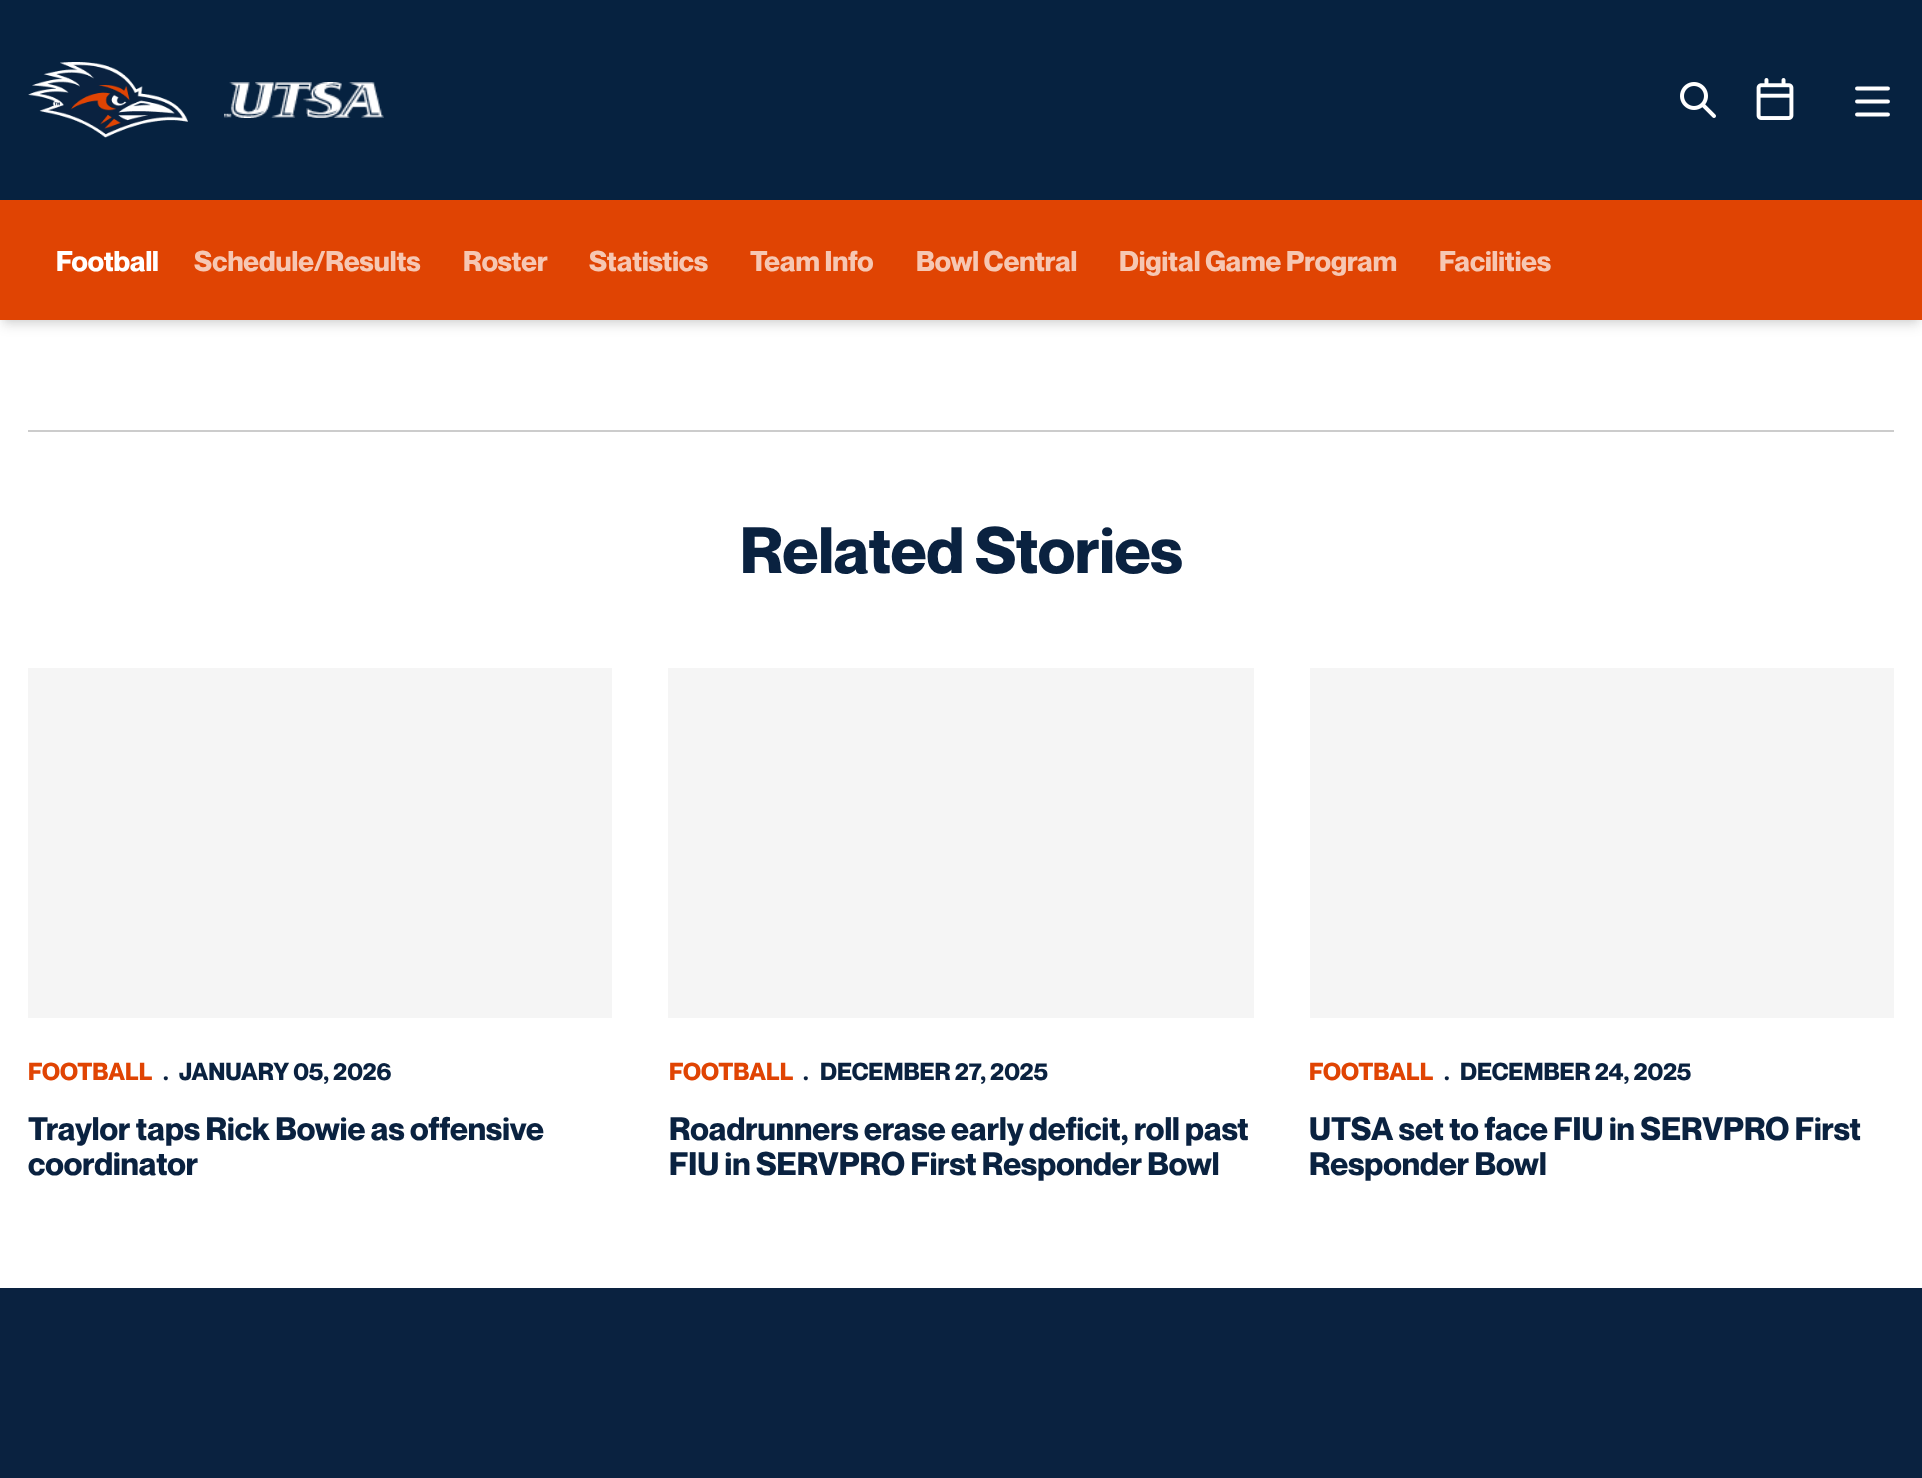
async function draw(canvas) {
	canvas.width = 1922;
	canvas.height = 1478;
	const c = canvas.getContext('2d');
	c.miterLimit = 4;
	c.fontKerning = 'normal';
	async function loadImage(src) {
		const img = new Image();
		img.src = src;
		await img.decode();
		return img;
	}

	c.fillStyle = '#fff';
	c.fillRect(0, 0, 1922, 1478);
	c.fillStyle = '#0000001a';
	c.filter = 'blur(4px)';
	c.beginPath();
	c.rect(4, 208, 1914, 112);
	c.fill();
	c.filter = 'none';
	c.filter = 'blur(6px)';
	c.beginPath();
	c.rect(2, 210, 1918, 116);
	c.fill();
	c.filter = 'none';
	c.fillStyle = '#062240';
	c.fillRect(0, 0, 1922, 200);
	c.drawImage(await loadImage('img1.png'), 28, 62, 160, 76);
	c.drawImage(await loadImage('img2.png'), 224, 82, 160, 36);
	c.drawImage(await loadImage('img3.png'), 1680, 82, 36, 36);
	c.drawImage(await loadImage('img4.png'), 1756, 78, 38, 42);
	c.beginPath();
	c.moveTo(1857, 88.5);
	c.lineTo(1888, 88.5);
	c.moveTo(1857, 101.5);
	c.lineTo(1888, 101.5);
	c.moveTo(1888, 114.5);
	c.lineTo(1857, 114.5);
	c.strokeStyle = '#fff';
	c.lineWidth = 3.9;
	c.lineCap = 'round';
	c.stroke();
	c.fillStyle = '#e04403';
	c.fillRect(0, 200, 1922, 120);
	c.font = 'bold 28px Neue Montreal';
	c.fillStyle = '#fff';
	c.fillText('Football', 56, 271);
	c.fillStyle = '#f6c7b3';
	for (const [text, x, y] of [
		['Schedule/Results', 194, 271],
		['Roster', 463, 271],
		['Statistics', 589, 271],
		['Team Info', 750, 271],
		['Bowl Central', 916, 271],
		['Digital Game Program', 1119, 271],
		['Facilities', 1439, 271],
	]) {
		c.fillText(text, x, y);
	}
	c.fillStyle = '#ccc';
	c.fillRect(28, 430, 1866, 2);
	c.font = 'bold 64px Neue Montreal';
	c.fillStyle = '#0a2240';
	c.fillText('Related Stories', 740, 573);
	c.fillStyle = '#f5f5f5';
	c.fillRect(28, 668, 584, 350);
	c.font = 'bold 24px Neue Montreal';
	c.fillStyle = '#e04403';
	c.fillText('FOOTBALL', 28, 1080);
	c.fillStyle = '#0a2240';
	c.fillText('.', 163, 1080);
	c.fillText('JANUARY 05, 2026', 179, 1080);
	c.font = 'bold 32px Neue Montreal';
	c.fillText('Traylor taps Rick Bowie as offensive', 28, 1140);
	c.fillText('coordinator', 28, 1175);
	c.fillStyle = '#f5f5f5';
	c.fillRect(668, 668, 586, 350);
	c.font = 'bold 24px Neue Montreal';
	c.fillStyle = '#e04403';
	c.fillText('FOOTBALL', 669, 1080);
	c.fillStyle = '#0a2240';
	c.fillText('.', 803, 1080);
	c.fillText('DECEMBER 27, 2025', 820, 1080);
	c.font = 'bold 32px Neue Montreal';
	c.fillText('Roadrunners erase early deficit, roll past', 669, 1140);
	c.fillText('FIU in SERVPRO First Responder Bowl', 669, 1175);
	c.fillStyle = '#f5f5f5';
	c.fillRect(1310, 668, 584, 350);
	c.font = 'bold 24px Neue Montreal';
	c.fillStyle = '#e04403';
	c.fillText('FOOTBALL', 1309, 1080);
	c.fillStyle = '#0a2240';
	c.fillText('.', 1444, 1080);
	c.fillText('DECEMBER 24, 2025', 1460, 1080);
	c.font = 'bold 32px Neue Montreal';
	c.fillText('UTSA set to face FIU in SERVPRO First', 1309, 1140);
	c.fillText('Responder Bowl', 1309, 1175);
	c.fillRect(0, 1288, 1922, 190);
}

draw(document.querySelector('canvas'));
